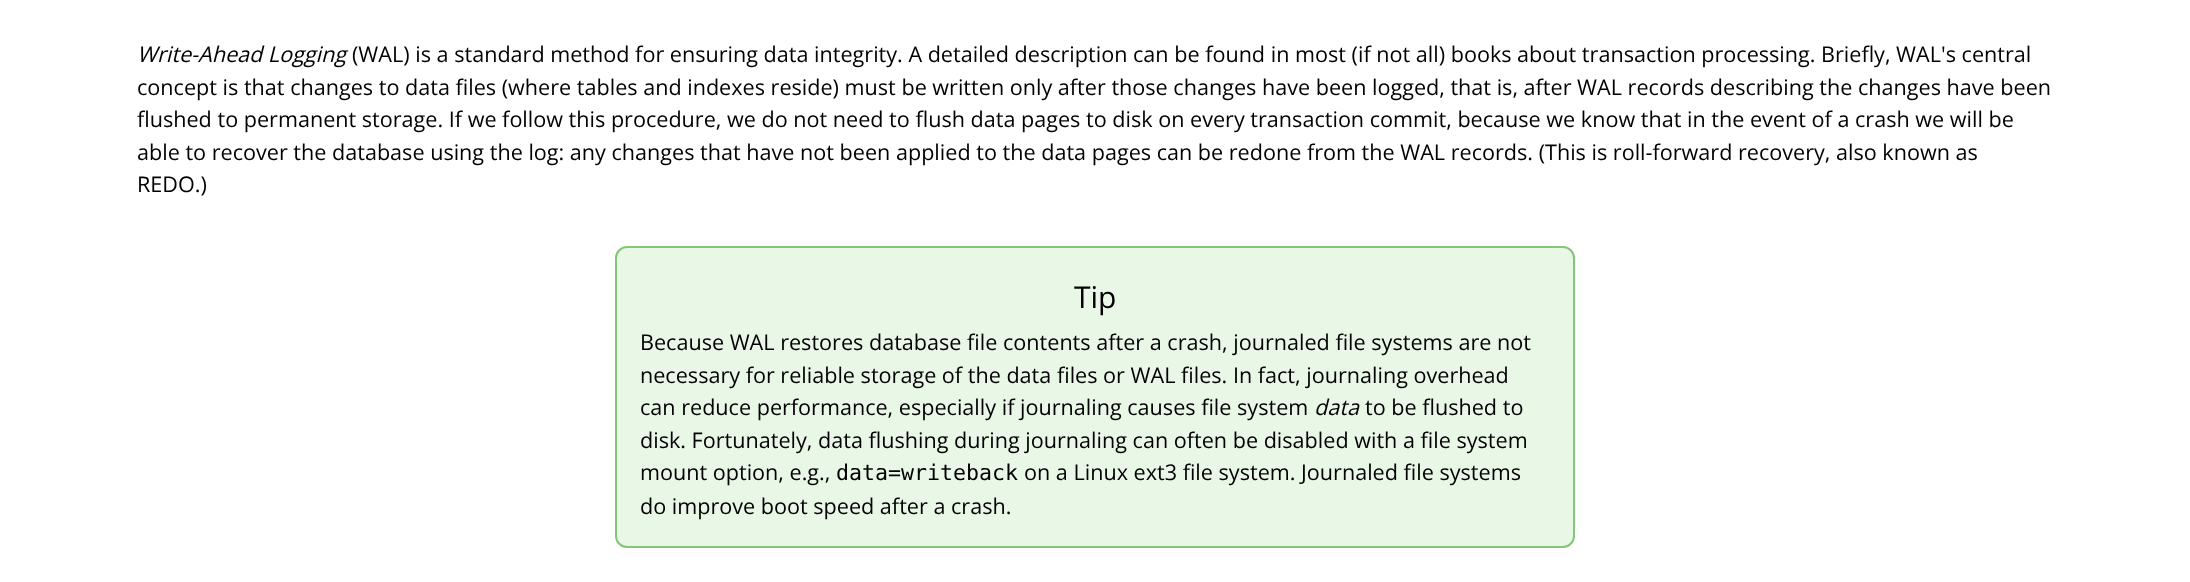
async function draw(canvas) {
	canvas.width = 2190;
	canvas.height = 582;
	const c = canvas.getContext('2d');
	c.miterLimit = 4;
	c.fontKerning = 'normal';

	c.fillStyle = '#fff';
	c.fillRect(0, 0, 2190, 582);
	c.font = 'italic 21.6px Open Sans';
	c.fillStyle = '#000';
	c.fillText('Write-Ahead Logging', 137, 62);
	c.font = '21.6px Open Sans';
	for (const [text, x, y] of [
		['(WAL) is a standard method for ensuring data integrity. A detailed description can be found in most (if not all) books about transaction processing. Briefly, WAL\'s central', 352, 62],
		['concept is that changes to data files (where tables and indexes reside) must be written only after those changes have been logged, that is, after WAL records describing the changes have been', 137, 95],
		['flushed to permanent storage. If we follow this procedure, we do not need to flush data pages to disk on every transaction commit, because we know that in the event of a crash we will be', 137, 127],
		['able to recover the database using the log: any changes that have not been applied to the data pages can be redone from the WAL records. (This is roll-forward recovery, also known as', 137, 160],
		['REDO.)', 137, 192],
	]) {
		c.fillText(text, x, y);
	}
	c.fillStyle = '#e8f7e6';
	c.beginPath();
	c.roundRect(616, 247, 958, 300, 11);
	c.fill();
	c.strokeStyle = '#84c578';
	c.lineWidth = 2;
	c.stroke();
	c.font = '30px Open Sans';
	c.fillStyle = '#000';
	c.fillText('Tip', 1074, 308);
	c.font = '21.6px Open Sans';
	for (const [text, x, y] of [
		['Because WAL restores database file contents after a crash, journaled file systems are not', 640, 350],
		['necessary for reliable storage of the data files or WAL files. In fact, journaling overhead', 640, 383],
		['can reduce performance, especially if journaling causes file system', 640, 415],
	]) {
		c.fillText(text, x, y);
	}
	c.font = 'italic 21.6px Open Sans';
	c.fillText('data', 1314, 415);
	c.font = '21.6px Open Sans';
	for (const [text, x, y] of [
		['to be flushed to', 1365, 415],
		['disk. Fortunately, data flushing during journaling can often be disabled with a file system', 640, 448],
		['mount option, e.g.,', 640, 480],
	]) {
		c.fillText(text, x, y);
	}
	c.font = '21.6px DejaVu Sans Mono';
	c.fillText('data=writeback', 836, 480);
	c.font = '21.6px Open Sans';
	c.fillText('on a Linux ext3 file system. Journaled file systems', 1024, 480);
	c.fillText('do improve boot speed after a crash.', 640, 514);
}

draw(document.querySelector('canvas'));
